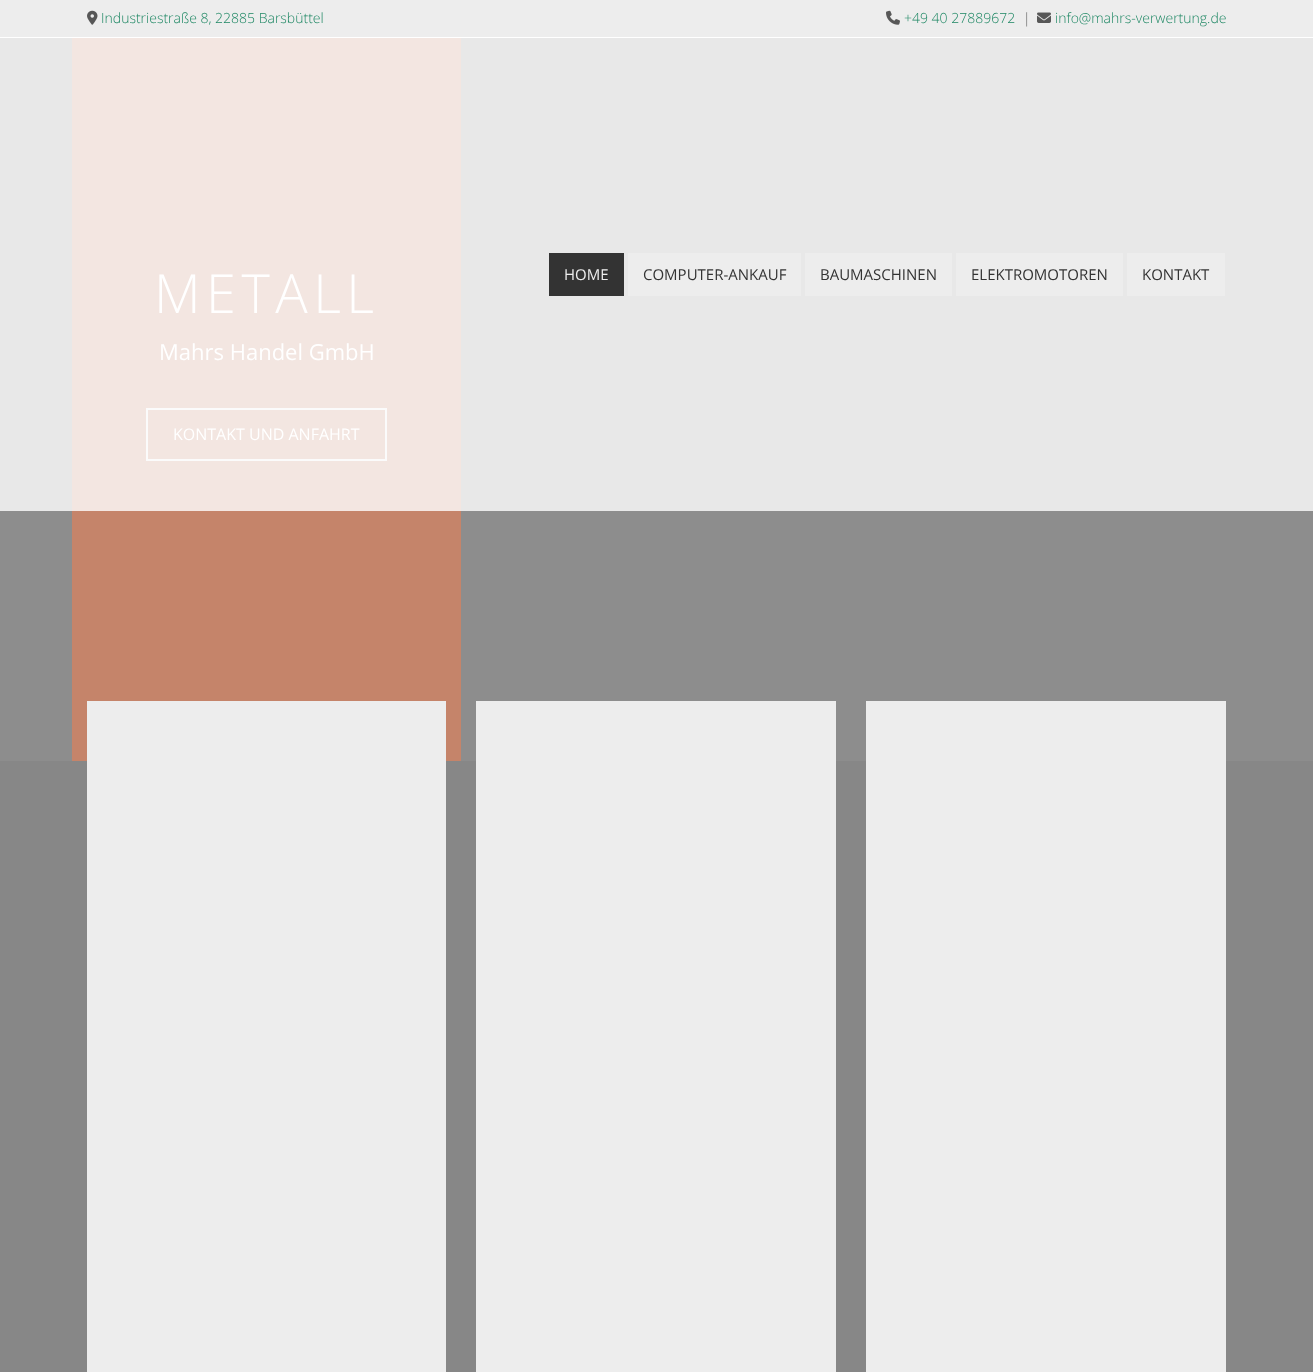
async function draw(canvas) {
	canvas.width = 1313;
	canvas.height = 1372;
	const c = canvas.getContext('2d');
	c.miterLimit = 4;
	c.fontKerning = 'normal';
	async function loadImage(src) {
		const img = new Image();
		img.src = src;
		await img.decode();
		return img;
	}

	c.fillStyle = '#8d8d8d';
	c.fillRect(0, 0, 1313, 1372);
	c.fillStyle = '#ededed';
	c.fillRect(0, 0, 1313, 37);
	c.drawImage(await loadImage('img1.png'), 87, 10, 11, 15);
	c.font = '300 14px Open Sans';
	c.fillStyle = '#1d8763';
	c.fillText('Industriestraße 8, 22885 Barsbüttel', 101, 23);
	c.drawImage(await loadImage('img2.png'), 886, 10, 14, 15);
	c.fillText('+49 40 27889672', 904, 23);
	c.fillStyle = '#575757';
	c.fillText('|', 1023, 23);
	c.drawImage(await loadImage('img3.png'), 1037, 12, 14, 11);
	c.fillStyle = '#1d8763';
	c.fillText('info@mahrs-verwertung.de', 1055, 23);
	for (const [x, y, w, h, color] of [
		[0, 37, 1313, 1, '#fff'],
		[0, 38, 1313, 473, '#e8e8e8'],
		[549, 253, 75, 43, '#333'],
	]) {
		c.fillStyle = color;
		c.fillRect(x, y, w, h);
	}
	c.font = '15px Open Sans';
	c.fillStyle = '#ededed';
	c.fillText('HOME', 564, 280);
	c.fillRect(628, 253, 173, 43);
	c.fillStyle = '#333';
	c.fillText('COMPUTER-ANKAUF', 643, 280);
	c.fillStyle = '#ededed';
	c.fillRect(805, 253, 147, 43);
	c.fillStyle = '#333';
	c.fillText('BAUMASCHINEN', 820, 280);
	c.fillStyle = '#ededed';
	c.fillRect(956, 253, 167, 43);
	c.fillStyle = '#333';
	c.fillText('ELEKTROMOTOREN', 971, 280);
	c.fillStyle = '#ededed';
	c.fillRect(1127, 253, 98, 43);
	c.fillStyle = '#333';
	c.fillText('KONTAKT', 1142, 280);
	c.fillStyle = '#c5846a';
	c.fillRect(72, 511, 389, 250);
	c.fillStyle = '#f3e6e1';
	c.fillRect(72, 38, 389, 473);
	c.letterSpacing = '5.5px';
	c.font = '300 54px Open Sans';
	c.fillStyle = '#fff';
	c.fillText('METALL', 154, 313);
	c.letterSpacing = '0px';
	c.font = '22px Open Sans';
	c.fillText('Mahrs Handel GmbH', 159, 360);
	c.strokeStyle = '#fbfbfb';
	c.lineWidth = 2;
	c.strokeRect(147, 409, 239, 51);
	c.font = '16px Open Sans';
	c.fillText('KONTAKT UND ANFAHRT', 173, 440);
	for (const [x, y, w, h, color] of [
		[0, 761, 1313, 611, '#878787'],
		[87, 701, 359, 671, '#ededed'],
		[476, 701, 360, 671, '#ededed'],
		[866, 701, 360, 671, '#ededed'],
	]) {
		c.fillStyle = color;
		c.fillRect(x, y, w, h);
	}
}

draw(document.querySelector('canvas'));
